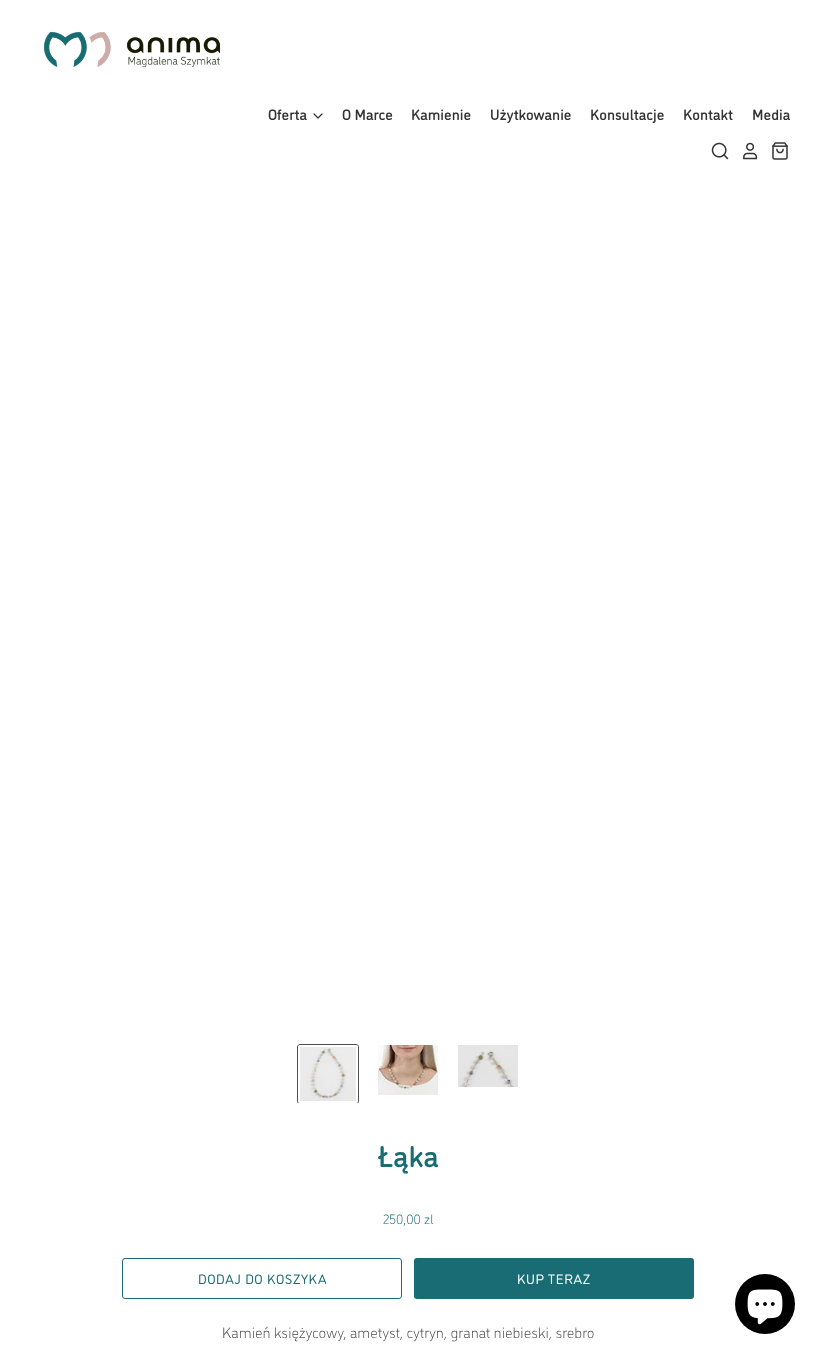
async function draw(canvas) {
	canvas.width = 817;
	canvas.height = 1355;
	const c = canvas.getContext('2d');
	c.miterLimit = 4;
	c.fontKerning = 'normal';
	async function loadImage(src) {
		const img = new Image();
		img.src = src;
		await img.decode();
		return img;
	}

	c.fillStyle = '#fff';
	c.fillRect(0, 0, 817, 1355);
	c.drawImage(await loadImage('img1.png'), 43, 31, 178, 37);
	c.font = '500 15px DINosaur';
	c.fillStyle = '#333';
	c.fillText('Oferta', 268, 120);
	c.beginPath();
	c.moveTo(314, 114);
	c.lineTo(318, 118);
	c.lineTo(322, 114);
	c.strokeStyle = '#333';
	c.lineWidth = 1.2;
	c.lineCap = 'round';
	c.lineJoin = 'round';
	c.stroke();
	for (const [text, x, y] of [
		['O Marce', 342, 120],
		['Kamienie', 411, 120],
		['Użytkowanie', 490, 120],
		['Konsultacje', 590, 120],
		['Kontakt', 683, 120],
		['Media', 752, 120],
	]) {
		c.fillText(text, x, y);
	}
	c.drawImage(await loadImage('img2.png'), 711, 142, 18, 18);
	c.drawImage(await loadImage('img3.png'), 743, 142, 15, 18);
	c.drawImage(await loadImage('img4.png'), 772, 142, 16, 18);
	c.drawImage(await loadImage('img5.png'), 298, 1045, 60, 58);
	c.save();
	c.beginPath();
	c.rect(103, 205, 611, 898);
	c.clip();
	c.beginPath();
	c.roundRect(297.5, 1044.5, 61, 59, 2.5);
	c.strokeStyle = '#4f4f4f';
	c.lineWidth = 1;
	c.lineJoin = 'miter';
	c.stroke();
	c.restore();
	c.beginPath();
	c.roundRect(299, 1046, 58, 56, 1);
	c.strokeStyle = '#fff';
	c.lineWidth = 2;
	c.lineJoin = 'miter';
	c.stroke();
	c.drawImage(await loadImage('img6.png'), 378, 1045, 60, 50);
	c.drawImage(await loadImage('img7.png'), 458, 1045, 60, 42);
	c.font = '500 30px DINosaur';
	c.fillStyle = '#196c73';
	c.fillText('Łąka', 378, 1167);
	c.font = '300 13.5px DINosaur';
	c.fillText('250,00 zl', 383, 1224);
	c.beginPath();
	c.roundRect(122.5, 1258.5, 279, 40, 2.5);
	c.strokeStyle = '#196c73';
	c.lineWidth = 1;
	c.stroke();
	c.letterSpacing = '0.9px';
	c.font = 'bold 13.1px DINosaur';
	c.fillText('DODAJ DO KOSZYKA', 198, 1284);
	c.beginPath();
	c.roundRect(414, 1258, 280, 41, 3);
	c.fill();
	c.fillStyle = '#fff';
	c.fillText('KUP TERAZ', 517, 1284);
	c.letterSpacing = '0px';
	c.font = '300 15px DINosaur';
	c.fillStyle = '#4f4f4f';
	c.fillText('Kamień księżycowy, ametyst, cytryn, granat niebieski, srebro', 222, 1338);
	c.fillStyle = '#000';
	c.beginPath();
	c.arc(765, 1304, 30, 0, 2 * Math.PI);
	c.fill();
	c.drawImage(await loadImage('img8.png'), 747, 1289, 36, 36);
}

draw(document.querySelector('canvas'));
